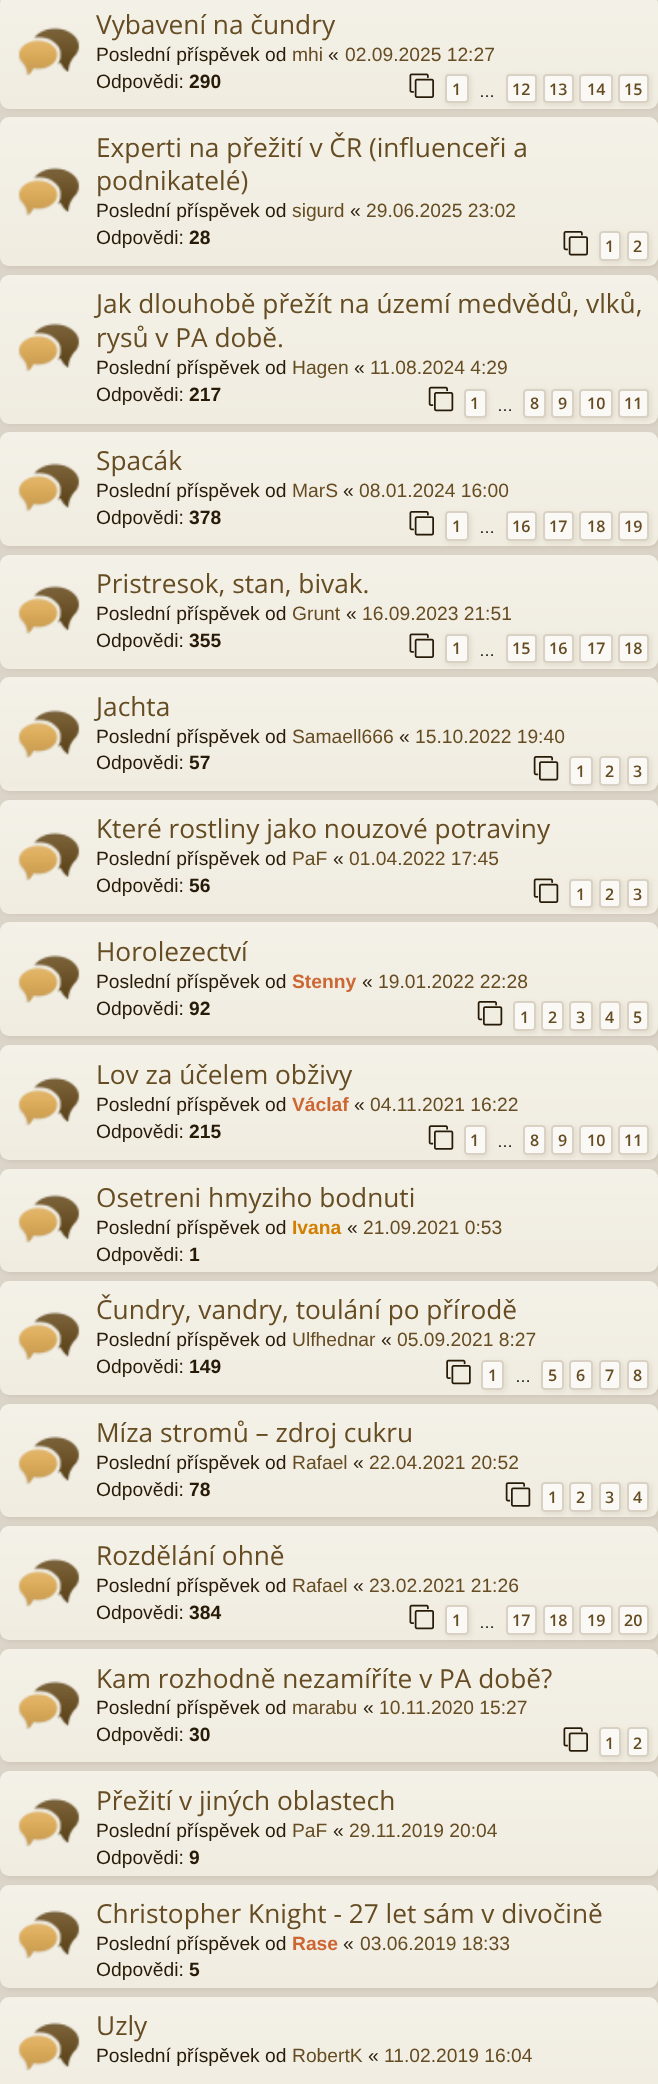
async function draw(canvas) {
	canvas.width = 658;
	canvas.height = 2084;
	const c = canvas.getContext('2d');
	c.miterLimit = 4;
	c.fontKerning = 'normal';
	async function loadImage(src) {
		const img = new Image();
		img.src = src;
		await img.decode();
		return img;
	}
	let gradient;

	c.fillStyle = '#dbd5c9';
	c.fillRect(0, 0, 658, 2084);
	c.fillStyle = '#654c221a';
	c.filter = 'blur(2.5px)';
	c.beginPath();
	c.roundRect(2, -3, 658, 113, 9);
	c.fill();
	c.filter = 'none';
	c.fillStyle = '#f0ece0';
	c.beginPath();
	c.roundRect(0, -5, 658, 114, 9);
	c.fill();
	gradient = c.createLinearGradient(329, -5.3, 329, 109);
	gradient.addColorStop(0, '#ffffff40');
	gradient.addColorStop(1, '#ffffff00');
	c.fillStyle = gradient;
	c.beginPath();
	c.roundRect(0, -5, 658, 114, 9);
	c.fill();
	c.drawImage(await loadImage('img1.png'), 18, 27, 62, 49);
	c.font = '26.25px Open Sans';
	c.fillStyle = '#654c22';
	c.fillText('Vybavení na čundry', 96, 34);
	c.font = '19.25px Liberation Sans';
	c.fillStyle = '#271b08';
	c.fillText('Poslední příspěvek od', 96, 61);
	c.fillStyle = '#654c22';
	c.fillText('mhi', 292, 61);
	c.fillStyle = '#271b08';
	c.fillText('«', 328, 61);
	c.fillStyle = '#654c22';
	c.fillText('02.09.2025 12:27', 345, 61);
	c.fillStyle = '#271b08';
	c.fillText('Odpovědi:', 96, 88);
	c.font = 'bold 19.25px Liberation Sans';
	c.fillText('290', 189, 88);
	c.drawImage(await loadImage('img2.png'), 409, 73, 25, 25);
	c.fillStyle = '#654c221a';
	c.filter = 'blur(2.5px)';
	c.beginPath();
	c.roundRect(446, 75, 25, 30, 4);
	c.fill();
	c.filter = 'none';
	c.fillStyle = '#fbf9f6';
	c.beginPath();
	c.roundRect(446, 75, 22, 27, 3);
	c.fill();
	c.strokeStyle = '#d8d1c4';
	c.lineWidth = 2;
	c.stroke();
	c.font = '600 16px Open Sans';
	c.fillStyle = '#654c22';
	c.fillText('1', 452, 95);
	c.font = '16px Liberation Sans';
	c.fillStyle = '#000';
	c.fillText('…', 479, 97);
	c.fillStyle = '#654c221a';
	c.filter = 'blur(2.5px)';
	c.beginPath();
	c.roundRect(508, 75, 31, 30, 4);
	c.fill();
	c.filter = 'none';
	c.fillStyle = '#fbf9f6';
	c.beginPath();
	c.roundRect(507, 75, 29, 27, 3);
	c.fill();
	c.stroke();
	c.font = '600 16px Open Sans';
	c.fillStyle = '#654c22';
	c.fillText('12', 512, 95);
	c.fillStyle = '#654c221a';
	c.filter = 'blur(2.5px)';
	c.beginPath();
	c.roundRect(544, 75, 32, 30, 4);
	c.fill();
	c.filter = 'none';
	c.fillStyle = '#fbf9f6';
	c.beginPath();
	c.roundRect(544, 75, 29, 27, 3);
	c.fill();
	c.stroke();
	c.fillStyle = '#654c22';
	c.fillText('13', 549, 95);
	c.fillStyle = '#654c221a';
	c.filter = 'blur(2.5px)';
	c.beginPath();
	c.roundRect(581, 75, 33, 30, 4);
	c.fill();
	c.filter = 'none';
	c.fillStyle = '#fbf9f6';
	c.beginPath();
	c.roundRect(580, 75, 32, 27, 3);
	c.fill();
	c.stroke();
	c.fillStyle = '#654c22';
	c.fillText('14', 587, 95);
	c.fillStyle = '#654c221a';
	c.filter = 'blur(2.5px)';
	c.beginPath();
	c.roundRect(620, 75, 31, 30, 4);
	c.fill();
	c.filter = 'none';
	c.fillStyle = '#fbf9f6';
	c.beginPath();
	c.roundRect(619, 75, 29, 27, 3);
	c.fill();
	c.stroke();
	c.fillStyle = '#654c22';
	c.fillText('15', 624, 95);
	c.fillStyle = '#654c221a';
	c.filter = 'blur(2.5px)';
	c.beginPath();
	c.roundRect(2, 119, 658, 149, 9);
	c.fill();
	c.filter = 'none';
	c.fillStyle = '#f0ece0';
	c.beginPath();
	c.roundRect(0, 117, 658, 149, 9);
	c.fill();
	gradient = c.createLinearGradient(329, 117, 329, 266);
	gradient.addColorStop(0, '#ffffff40');
	gradient.addColorStop(1, '#ffffff00');
	c.fillStyle = gradient;
	c.beginPath();
	c.roundRect(0, 117, 658, 149, 9);
	c.fill();
	c.drawImage(await loadImage('img3.png'), 18, 167, 62, 49);
	c.font = '26.25px Open Sans';
	c.fillStyle = '#654c22';
	c.fillText('Experti na přežití v ČR (influenceři a', 96, 157);
	c.fillText('podnikatelé)', 96, 190);
	c.font = '19.25px Liberation Sans';
	c.fillStyle = '#271b08';
	c.fillText('Poslední příspěvek od', 96, 217);
	c.fillStyle = '#654c22';
	c.fillText('sigurd', 292, 217);
	c.fillStyle = '#271b08';
	c.fillText('«', 350, 217);
	c.fillStyle = '#654c22';
	c.fillText('29.06.2025 23:02', 366, 217);
	c.fillStyle = '#271b08';
	c.fillText('Odpovědi:', 96, 244);
	c.font = 'bold 19.25px Liberation Sans';
	c.fillText('28', 189, 244);
	c.drawImage(await loadImage('img4.png'), 563, 231, 25, 25);
	c.fillStyle = '#654c221a';
	c.filter = 'blur(2.5px)';
	c.beginPath();
	c.roundRect(600, 233, 23, 30, 4);
	c.fill();
	c.filter = 'none';
	c.fillStyle = '#fbf9f6';
	c.beginPath();
	c.roundRect(599, 231, 22, 30, 4);
	c.fill();
	gradient = c.createLinearGradient(610, 233, 610, 259);
	gradient.addColorStop(0, '#ffffff33');
	gradient.addColorStop(1, '#ffffff00');
	c.fillStyle = gradient;
	c.fillRect(599, 233, 22, 1);
	c.beginPath();
	c.roundRect(600, 232, 20, 28, 3);
	c.stroke();
	c.font = '600 16px Open Sans';
	c.fillStyle = '#654c22';
	c.fillText('1', 605, 252);
	c.fillStyle = '#654c221a';
	c.filter = 'blur(2.5px)';
	c.beginPath();
	c.roundRect(628, 233, 23, 30, 4);
	c.fill();
	c.filter = 'none';
	c.fillStyle = '#fbf9f6';
	c.beginPath();
	c.roundRect(627, 231, 22, 30, 4);
	c.fill();
	gradient = c.createLinearGradient(638, 233, 638, 259);
	gradient.addColorStop(0, '#ffffff33');
	gradient.addColorStop(1, '#ffffff00');
	c.fillStyle = gradient;
	c.fillRect(627, 233, 22, 1);
	c.beginPath();
	c.roundRect(628, 232, 20, 28, 3);
	c.stroke();
	c.fillStyle = '#654c22';
	c.fillText('2', 633, 252);
	c.fillStyle = '#654c221a';
	c.filter = 'blur(2.5px)';
	c.beginPath();
	c.roundRect(2, 277, 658, 148, 9);
	c.fill();
	c.filter = 'none';
	c.fillStyle = '#f0ece0';
	c.beginPath();
	c.roundRect(0, 275, 658, 149, 9);
	c.fill();
	gradient = c.createLinearGradient(329, 275, 329, 424);
	gradient.addColorStop(0, '#ffffff40');
	gradient.addColorStop(1, '#ffffff00');
	c.fillStyle = gradient;
	c.beginPath();
	c.roundRect(0, 275, 658, 149, 9);
	c.fill();
	c.drawImage(await loadImage('img5.png'), 18, 323, 62, 49);
	c.font = '26.25px Open Sans';
	c.fillStyle = '#654c22';
	c.fillText('Jak dlouhobě přežít na území medvědů, vlků,', 96, 313);
	c.fillText('rysů v PA době.', 96, 347);
	c.font = '19.25px Liberation Sans';
	c.fillStyle = '#271b08';
	c.fillText('Poslední příspěvek od', 96, 374);
	c.fillStyle = '#654c22';
	c.fillText('Hagen', 292, 374);
	c.fillStyle = '#271b08';
	c.fillText('«', 354, 374);
	c.fillStyle = '#654c22';
	c.fillText('11.08.2024 4:29', 370, 374);
	c.fillStyle = '#271b08';
	c.fillText('Odpovědi:', 96, 401);
	c.font = 'bold 19.25px Liberation Sans';
	c.fillText('217', 189, 401);
	c.drawImage(await loadImage('img6.png'), 428, 386, 26, 26);
	c.fillStyle = '#654c221a';
	c.filter = 'blur(2.5px)';
	c.beginPath();
	c.roundRect(466, 390, 22, 30, 4);
	c.fill();
	c.filter = 'none';
	c.fillStyle = '#fbf9f6';
	c.beginPath();
	c.roundRect(465, 390, 21, 27, 3);
	c.fill();
	c.stroke();
	c.font = '600 16px Open Sans';
	c.fillStyle = '#654c22';
	c.fillText('1', 470, 409);
	c.fillStyle = '#654c221a';
	c.filter = 'blur(2.5px)';
	c.beginPath();
	c.roundRect(525, 390, 23, 30, 4);
	c.fill();
	c.filter = 'none';
	c.fillStyle = '#fbf9f6';
	c.beginPath();
	c.roundRect(524, 390, 21, 27, 3);
	c.fill();
	c.stroke();
	c.fillStyle = '#654c22';
	c.fillText('8', 530, 409);
	c.fillStyle = '#654c221a';
	c.filter = 'blur(2.5px)';
	c.beginPath();
	c.roundRect(553, 390, 23, 30, 4);
	c.fill();
	c.filter = 'none';
	c.fillStyle = '#fbf9f6';
	c.beginPath();
	c.roundRect(552, 390, 21, 27, 3);
	c.fill();
	c.stroke();
	c.fillStyle = '#654c22';
	c.fillText('9', 558, 409);
	c.fillStyle = '#654c221a';
	c.filter = 'blur(2.5px)';
	c.beginPath();
	c.roundRect(581, 390, 33, 30, 4);
	c.fill();
	c.filter = 'none';
	c.fillStyle = '#fbf9f6';
	c.beginPath();
	c.roundRect(580, 390, 32, 27, 3);
	c.fill();
	c.stroke();
	c.fillStyle = '#654c22';
	c.fillText('10', 587, 409);
	c.fillStyle = '#654c221a';
	c.filter = 'blur(2.5px)';
	c.beginPath();
	c.roundRect(620, 390, 31, 30, 4);
	c.fill();
	c.filter = 'none';
	c.fillStyle = '#fbf9f6';
	c.beginPath();
	c.roundRect(619, 390, 29, 27, 3);
	c.fill();
	c.stroke();
	c.fillStyle = '#654c22';
	c.fillText('11', 624, 409);
	c.font = '16px Liberation Sans';
	c.fillStyle = '#000';
	c.fillText('…', 497, 411);
	c.fillStyle = '#654c221a';
	c.filter = 'blur(2.5px)';
	c.beginPath();
	c.roundRect(2, 434, 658, 114, 9);
	c.fill();
	c.filter = 'none';
	c.fillStyle = '#f0ece0';
	c.beginPath();
	c.roundRect(0, 432, 658, 114, 9);
	c.fill();
	gradient = c.createLinearGradient(329, 432, 329, 546);
	gradient.addColorStop(0, '#ffffff40');
	gradient.addColorStop(1, '#ffffff00');
	c.fillStyle = gradient;
	c.beginPath();
	c.roundRect(0, 432, 658, 114, 9);
	c.fill();
	c.drawImage(await loadImage('img7.png'), 18, 463, 62, 49);
	c.font = '26.25px Open Sans';
	c.fillStyle = '#654c22';
	c.fillText('Spacák', 96, 470);
	c.font = '19.25px Liberation Sans';
	c.fillStyle = '#271b08';
	c.fillText('Poslední příspěvek od', 96, 497);
	c.fillStyle = '#654c22';
	c.fillText('MarS', 292, 497);
	c.fillStyle = '#271b08';
	c.fillText('«', 343, 497);
	c.fillStyle = '#654c22';
	c.fillText('08.01.2024 16:00', 359, 497);
	c.fillStyle = '#271b08';
	c.fillText('Odpovědi:', 96, 524);
	c.font = 'bold 19.25px Liberation Sans';
	c.fillText('378', 189, 524);
	c.drawImage(await loadImage('img8.png'), 409, 511, 25, 25);
	c.fillStyle = '#654c221a';
	c.filter = 'blur(2.5px)';
	c.beginPath();
	c.roundRect(446, 513, 25, 30, 4);
	c.fill();
	c.filter = 'none';
	c.fillStyle = '#fbf9f6';
	c.beginPath();
	c.roundRect(445, 511, 24, 30, 4);
	c.fill();
	gradient = c.createLinearGradient(457, 513, 457, 539);
	gradient.addColorStop(0, '#ffffff33');
	gradient.addColorStop(1, '#ffffff00');
	c.fillStyle = gradient;
	c.fillRect(445, 513, 24, 1);
	c.beginPath();
	c.roundRect(446, 512, 22, 28, 3);
	c.stroke();
	c.font = '600 16px Open Sans';
	c.fillStyle = '#654c22';
	c.fillText('1', 452, 532);
	c.font = '16px Liberation Sans';
	c.fillStyle = '#000';
	c.fillText('…', 479, 533);
	c.fillStyle = '#654c221a';
	c.filter = 'blur(2.5px)';
	c.beginPath();
	c.roundRect(508, 513, 31, 30, 4);
	c.fill();
	c.filter = 'none';
	c.fillStyle = '#fbf9f6';
	c.beginPath();
	c.roundRect(506, 511, 31, 30, 4);
	c.fill();
	gradient = c.createLinearGradient(522, 513, 522, 539);
	gradient.addColorStop(0, '#ffffff33');
	gradient.addColorStop(1, '#ffffff00');
	c.fillStyle = gradient;
	c.fillRect(506, 513, 31, 1);
	c.beginPath();
	c.roundRect(507, 512, 29, 28, 3);
	c.stroke();
	c.font = '600 16px Open Sans';
	c.fillStyle = '#654c22';
	c.fillText('16', 512, 532);
	c.fillStyle = '#654c221a';
	c.filter = 'blur(2.5px)';
	c.beginPath();
	c.roundRect(544, 513, 32, 30, 4);
	c.fill();
	c.filter = 'none';
	c.fillStyle = '#fbf9f6';
	c.beginPath();
	c.roundRect(543, 511, 31, 30, 4);
	c.fill();
	gradient = c.createLinearGradient(558, 513, 558, 539);
	gradient.addColorStop(0, '#ffffff33');
	gradient.addColorStop(1, '#ffffff00');
	c.fillStyle = gradient;
	c.fillRect(543, 513, 31, 1);
	c.beginPath();
	c.roundRect(544, 512, 29, 28, 3);
	c.stroke();
	c.fillStyle = '#654c22';
	c.fillText('17', 549, 532);
	c.fillStyle = '#654c221a';
	c.filter = 'blur(2.5px)';
	c.beginPath();
	c.roundRect(581, 513, 33, 30, 4);
	c.fill();
	c.filter = 'none';
	c.fillStyle = '#fbf9f6';
	c.beginPath();
	c.roundRect(579, 511, 34, 30, 4);
	c.fill();
	gradient = c.createLinearGradient(596, 513, 596, 539);
	gradient.addColorStop(0, '#ffffff33');
	gradient.addColorStop(1, '#ffffff00');
	c.fillStyle = gradient;
	c.fillRect(579, 513, 34, 1);
	c.beginPath();
	c.roundRect(580, 512, 32, 28, 3);
	c.stroke();
	c.fillStyle = '#654c22';
	c.fillText('18', 587, 532);
	c.fillStyle = '#654c221a';
	c.filter = 'blur(2.5px)';
	c.beginPath();
	c.roundRect(620, 513, 31, 30, 4);
	c.fill();
	c.filter = 'none';
	c.fillStyle = '#fbf9f6';
	c.beginPath();
	c.roundRect(618, 511, 31, 30, 4);
	c.fill();
	gradient = c.createLinearGradient(634, 513, 634, 539);
	gradient.addColorStop(0, '#ffffff33');
	gradient.addColorStop(1, '#ffffff00');
	c.fillStyle = gradient;
	c.fillRect(618, 513, 31, 1);
	c.beginPath();
	c.roundRect(619, 512, 29, 28, 3);
	c.stroke();
	c.fillStyle = '#654c22';
	c.fillText('19', 624, 532);
	c.fillStyle = '#654c221a';
	c.filter = 'blur(2.5px)';
	c.beginPath();
	c.roundRect(2, 557, 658, 113, 9);
	c.fill();
	c.filter = 'none';
	c.fillStyle = '#f0ece0';
	c.beginPath();
	c.roundRect(0, 555, 658, 114, 9);
	c.fill();
	gradient = c.createLinearGradient(329, 555, 329, 669);
	gradient.addColorStop(0, '#ffffff40');
	gradient.addColorStop(1, '#ffffff00');
	c.fillStyle = gradient;
	c.beginPath();
	c.roundRect(0, 555, 658, 114, 9);
	c.fill();
	c.drawImage(await loadImage('img9.png'), 18, 585, 62, 49);
	c.font = '26.25px Open Sans';
	c.fillStyle = '#654c22';
	c.fillText('Pristresok, stan, bivak.', 96, 593);
	c.font = '19.25px Liberation Sans';
	c.fillStyle = '#271b08';
	c.fillText('Poslední příspěvek od', 96, 620);
	c.fillStyle = '#654c22';
	c.fillText('Grunt', 292, 620);
	c.fillStyle = '#271b08';
	c.fillText('«', 346, 620);
	c.fillStyle = '#654c22';
	c.fillText('16.09.2023 21:51', 362, 620);
	c.fillStyle = '#271b08';
	c.fillText('Odpovědi:', 96, 647);
	c.font = 'bold 19.25px Liberation Sans';
	c.fillText('355', 189, 647);
	c.drawImage(await loadImage('img2.png'), 409, 633, 25, 25);
	c.fillStyle = '#654c221a';
	c.filter = 'blur(2.5px)';
	c.beginPath();
	c.roundRect(446, 635, 25, 30, 4);
	c.fill();
	c.filter = 'none';
	c.fillStyle = '#fbf9f6';
	c.beginPath();
	c.roundRect(446, 635, 22, 27, 3);
	c.fill();
	c.stroke();
	c.font = '600 16px Open Sans';
	c.fillStyle = '#654c22';
	c.fillText('1', 452, 654);
	c.font = '16px Liberation Sans';
	c.fillStyle = '#000';
	c.fillText('…', 479, 656);
	c.fillStyle = '#654c221a';
	c.filter = 'blur(2.5px)';
	c.beginPath();
	c.roundRect(508, 635, 31, 30, 4);
	c.fill();
	c.filter = 'none';
	c.fillStyle = '#fbf9f6';
	c.beginPath();
	c.roundRect(507, 635, 29, 27, 3);
	c.fill();
	c.stroke();
	c.font = '600 16px Open Sans';
	c.fillStyle = '#654c22';
	c.fillText('15', 512, 654);
	c.fillStyle = '#654c221a';
	c.filter = 'blur(2.5px)';
	c.beginPath();
	c.roundRect(544, 635, 32, 30, 4);
	c.fill();
	c.filter = 'none';
	c.fillStyle = '#fbf9f6';
	c.beginPath();
	c.roundRect(544, 635, 29, 27, 3);
	c.fill();
	c.stroke();
	c.fillStyle = '#654c22';
	c.fillText('16', 549, 654);
	c.fillStyle = '#654c221a';
	c.filter = 'blur(2.5px)';
	c.beginPath();
	c.roundRect(581, 635, 33, 30, 4);
	c.fill();
	c.filter = 'none';
	c.fillStyle = '#fbf9f6';
	c.beginPath();
	c.roundRect(580, 635, 32, 27, 3);
	c.fill();
	c.stroke();
	c.fillStyle = '#654c22';
	c.fillText('17', 587, 654);
	c.fillStyle = '#654c221a';
	c.filter = 'blur(2.5px)';
	c.beginPath();
	c.roundRect(620, 635, 31, 30, 4);
	c.fill();
	c.filter = 'none';
	c.fillStyle = '#fbf9f6';
	c.beginPath();
	c.roundRect(619, 635, 29, 27, 3);
	c.fill();
	c.stroke();
	c.fillStyle = '#654c22';
	c.fillText('18', 624, 654);
	c.fillStyle = '#654c221a';
	c.filter = 'blur(2.5px)';
	c.beginPath();
	c.roundRect(2, 679, 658, 114, 9);
	c.fill();
	c.filter = 'none';
	c.fillStyle = '#f0ece0';
	c.beginPath();
	c.roundRect(0, 677, 658, 114, 9);
	c.fill();
	gradient = c.createLinearGradient(329, 677, 329, 791);
	gradient.addColorStop(0, '#ffffff40');
	gradient.addColorStop(1, '#ffffff00');
	c.fillStyle = gradient;
	c.beginPath();
	c.roundRect(0, 677, 658, 114, 9);
	c.fill();
	c.drawImage(await loadImage('img10.png'), 18, 709, 62, 49);
	c.font = '26.25px Open Sans';
	c.fillStyle = '#654c22';
	c.fillText('Jachta', 96, 716);
	c.font = '19.25px Liberation Sans';
	c.fillStyle = '#271b08';
	c.fillText('Poslední příspěvek od', 96, 743);
	c.fillStyle = '#654c22';
	c.fillText('Samaell666', 292, 743);
	c.fillStyle = '#271b08';
	c.fillText('«', 399, 743);
	c.fillStyle = '#654c22';
	c.fillText('15.10.2022 19:40', 415, 743);
	c.fillStyle = '#271b08';
	c.fillText('Odpovědi:', 96, 769);
	c.font = 'bold 19.25px Liberation Sans';
	c.fillText('57', 189, 769);
	c.drawImage(await loadImage('img11.png'), 533, 756, 26, 25);
	c.fillStyle = '#654c221a';
	c.filter = 'blur(2.5px)';
	c.beginPath();
	c.roundRect(571, 758, 24, 30, 4);
	c.fill();
	c.filter = 'none';
	c.fillStyle = '#fbf9f6';
	c.beginPath();
	c.roundRect(569, 756, 24, 30, 4);
	c.fill();
	gradient = c.createLinearGradient(581, 758, 581, 784);
	gradient.addColorStop(0, '#ffffff33');
	gradient.addColorStop(1, '#ffffff00');
	c.fillStyle = gradient;
	c.fillRect(569, 758, 24, 1);
	c.beginPath();
	c.roundRect(570, 757, 22, 28, 3);
	c.stroke();
	c.font = '600 16px Open Sans';
	c.fillStyle = '#654c22';
	c.fillText('1', 576, 777);
	c.fillStyle = '#654c221a';
	c.filter = 'blur(2.5px)';
	c.beginPath();
	c.roundRect(600, 758, 23, 30, 4);
	c.fill();
	c.filter = 'none';
	c.fillStyle = '#fbf9f6';
	c.beginPath();
	c.roundRect(599, 756, 22, 30, 4);
	c.fill();
	gradient = c.createLinearGradient(610, 758, 610, 784);
	gradient.addColorStop(0, '#ffffff33');
	gradient.addColorStop(1, '#ffffff00');
	c.fillStyle = gradient;
	c.fillRect(599, 758, 22, 1);
	c.beginPath();
	c.roundRect(600, 757, 20, 28, 3);
	c.stroke();
	c.fillStyle = '#654c22';
	c.fillText('2', 605, 777);
	c.fillStyle = '#654c221a';
	c.filter = 'blur(2.5px)';
	c.beginPath();
	c.roundRect(628, 758, 23, 30, 4);
	c.fill();
	c.filter = 'none';
	c.fillStyle = '#fbf9f6';
	c.beginPath();
	c.roundRect(627, 756, 22, 30, 4);
	c.fill();
	gradient = c.createLinearGradient(638, 758, 638, 784);
	gradient.addColorStop(0, '#ffffff33');
	gradient.addColorStop(1, '#ffffff00');
	c.fillStyle = gradient;
	c.fillRect(627, 758, 22, 1);
	c.beginPath();
	c.roundRect(628, 757, 20, 28, 3);
	c.stroke();
	c.fillStyle = '#654c22';
	c.fillText('3', 633, 777);
	c.fillStyle = '#654c221a';
	c.filter = 'blur(2.5px)';
	c.beginPath();
	c.roundRect(2, 802, 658, 113, 9);
	c.fill();
	c.filter = 'none';
	c.fillStyle = '#f0ece0';
	c.beginPath();
	c.roundRect(0, 800, 658, 114, 9);
	c.fill();
	gradient = c.createLinearGradient(329, 800, 329, 914);
	gradient.addColorStop(0, '#ffffff40');
	gradient.addColorStop(1, '#ffffff00');
	c.fillStyle = gradient;
	c.beginPath();
	c.roundRect(0, 800, 658, 114, 9);
	c.fill();
	c.drawImage(await loadImage('img12.png'), 18, 832, 62, 49);
	c.font = '26.25px Open Sans';
	c.fillStyle = '#654c22';
	c.fillText('Které rostliny jako nouzové potraviny', 96, 838);
	c.font = '19.25px Liberation Sans';
	c.fillStyle = '#271b08';
	c.fillText('Poslední příspěvek od', 96, 865);
	c.fillStyle = '#654c22';
	c.fillText('PaF', 292, 865);
	c.fillStyle = '#271b08';
	c.fillText('«', 333, 865);
	c.fillStyle = '#654c22';
	c.fillText('01.04.2022 17:45', 349, 865);
	c.fillStyle = '#271b08';
	c.fillText('Odpovědi:', 96, 892);
	c.font = 'bold 19.25px Liberation Sans';
	c.fillText('56', 189, 892);
	c.drawImage(await loadImage('img13.png'), 533, 878, 26, 25);
	c.fillStyle = '#654c221a';
	c.filter = 'blur(2.5px)';
	c.beginPath();
	c.roundRect(571, 880, 24, 30, 4);
	c.fill();
	c.filter = 'none';
	c.fillStyle = '#fbf9f6';
	c.beginPath();
	c.roundRect(570, 880, 22, 27, 3);
	c.fill();
	c.stroke();
	c.font = '600 16px Open Sans';
	c.fillStyle = '#654c22';
	c.fillText('1', 576, 900);
	c.fillStyle = '#654c221a';
	c.filter = 'blur(2.5px)';
	c.beginPath();
	c.roundRect(600, 880, 23, 30, 4);
	c.fill();
	c.filter = 'none';
	c.fillStyle = '#fbf9f6';
	c.beginPath();
	c.roundRect(600, 880, 20, 27, 3);
	c.fill();
	c.stroke();
	c.fillStyle = '#654c22';
	c.fillText('2', 605, 900);
	c.fillStyle = '#654c221a';
	c.filter = 'blur(2.5px)';
	c.beginPath();
	c.roundRect(628, 880, 23, 30, 4);
	c.fill();
	c.filter = 'none';
	c.fillStyle = '#fbf9f6';
	c.beginPath();
	c.roundRect(628, 880, 20, 27, 3);
	c.fill();
	c.stroke();
	c.fillStyle = '#654c22';
	c.fillText('3', 633, 900);
	c.fillStyle = '#654c221a';
	c.filter = 'blur(2.5px)';
	c.beginPath();
	c.roundRect(2, 924, 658, 114, 9);
	c.fill();
	c.filter = 'none';
	c.fillStyle = '#f0ece0';
	c.beginPath();
	c.roundRect(0, 922, 658, 114, 9);
	c.fill();
	gradient = c.createLinearGradient(329, 922, 329, 1036);
	gradient.addColorStop(0, '#ffffff40');
	gradient.addColorStop(1, '#ffffff00');
	c.fillStyle = gradient;
	c.beginPath();
	c.roundRect(0, 922, 658, 114, 9);
	c.fill();
	c.drawImage(await loadImage('img10.png'), 18, 954, 62, 49);
	c.font = '26.25px Open Sans';
	c.fillStyle = '#654c22';
	c.fillText('Horolezectví', 96, 961);
	c.font = '19.25px Liberation Sans';
	c.fillStyle = '#271b08';
	c.fillText('Poslední příspěvek od', 96, 988);
	c.font = 'bold 19.25px Liberation Sans';
	c.fillStyle = '#c63';
	c.fillText('Stenny', 292, 988);
	c.font = '19.25px Liberation Sans';
	c.fillStyle = '#271b08';
	c.fillText('«', 362, 988);
	c.fillStyle = '#654c22';
	c.fillText('19.01.2022 22:28', 378, 988);
	c.fillStyle = '#271b08';
	c.fillText('Odpovědi:', 96, 1015);
	c.font = 'bold 19.25px Liberation Sans';
	c.fillText('92', 189, 1015);
	c.drawImage(await loadImage('img11.png'), 477, 1001, 26, 25);
	c.fillStyle = '#654c221a';
	c.filter = 'blur(2.5px)';
	c.beginPath();
	c.roundRect(515, 1003, 22, 30, 4);
	c.fill();
	c.filter = 'none';
	c.fillStyle = '#fbf9f6';
	c.beginPath();
	c.roundRect(513, 1001, 23, 30, 4);
	c.fill();
	gradient = c.createLinearGradient(524, 1003, 524, 1029);
	gradient.addColorStop(0, '#ffffff33');
	gradient.addColorStop(1, '#ffffff00');
	c.fillStyle = gradient;
	c.fillRect(513, 1003, 23, 1);
	c.beginPath();
	c.roundRect(514, 1002, 21, 28, 3);
	c.stroke();
	c.font = '600 16px Open Sans';
	c.fillStyle = '#654c22';
	c.fillText('1', 520, 1023);
	c.fillStyle = '#654c221a';
	c.filter = 'blur(2.5px)';
	c.beginPath();
	c.roundRect(543, 1003, 22, 30, 4);
	c.fill();
	c.filter = 'none';
	c.fillStyle = '#fbf9f6';
	c.beginPath();
	c.roundRect(541, 1001, 23, 30, 4);
	c.fill();
	gradient = c.createLinearGradient(552, 1003, 552, 1029);
	gradient.addColorStop(0, '#ffffff33');
	gradient.addColorStop(1, '#ffffff00');
	c.fillStyle = gradient;
	c.fillRect(541, 1003, 23, 1);
	c.beginPath();
	c.roundRect(542, 1002, 21, 28, 3);
	c.stroke();
	c.fillStyle = '#654c22';
	c.fillText('2', 548, 1023);
	c.fillStyle = '#654c221a';
	c.filter = 'blur(2.5px)';
	c.beginPath();
	c.roundRect(571, 1003, 24, 30, 4);
	c.fill();
	c.filter = 'none';
	c.fillStyle = '#fbf9f6';
	c.beginPath();
	c.roundRect(569, 1001, 24, 30, 4);
	c.fill();
	gradient = c.createLinearGradient(581, 1003, 581, 1029);
	gradient.addColorStop(0, '#ffffff33');
	gradient.addColorStop(1, '#ffffff00');
	c.fillStyle = gradient;
	c.fillRect(569, 1003, 24, 1);
	c.beginPath();
	c.roundRect(570, 1002, 22, 28, 3);
	c.stroke();
	c.fillStyle = '#654c22';
	c.fillText('3', 576, 1023);
	c.fillStyle = '#654c221a';
	c.filter = 'blur(2.5px)';
	c.beginPath();
	c.roundRect(600, 1003, 23, 30, 4);
	c.fill();
	c.filter = 'none';
	c.fillStyle = '#fbf9f6';
	c.beginPath();
	c.roundRect(599, 1001, 22, 30, 4);
	c.fill();
	gradient = c.createLinearGradient(610, 1003, 610, 1029);
	gradient.addColorStop(0, '#ffffff33');
	gradient.addColorStop(1, '#ffffff00');
	c.fillStyle = gradient;
	c.fillRect(599, 1003, 22, 1);
	c.beginPath();
	c.roundRect(600, 1002, 20, 28, 3);
	c.stroke();
	c.fillStyle = '#654c22';
	c.fillText('4', 605, 1023);
	c.fillStyle = '#654c221a';
	c.filter = 'blur(2.5px)';
	c.beginPath();
	c.roundRect(628, 1003, 23, 30, 4);
	c.fill();
	c.filter = 'none';
	c.fillStyle = '#fbf9f6';
	c.beginPath();
	c.roundRect(627, 1001, 22, 30, 4);
	c.fill();
	gradient = c.createLinearGradient(638, 1003, 638, 1029);
	gradient.addColorStop(0, '#ffffff33');
	gradient.addColorStop(1, '#ffffff00');
	c.fillStyle = gradient;
	c.fillRect(627, 1003, 22, 1);
	c.beginPath();
	c.roundRect(628, 1002, 20, 28, 3);
	c.stroke();
	c.fillStyle = '#654c22';
	c.fillText('5', 633, 1023);
	c.fillStyle = '#654c221a';
	c.filter = 'blur(2.5px)';
	c.beginPath();
	c.roundRect(2, 1047, 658, 115, 9);
	c.fill();
	c.filter = 'none';
	c.fillStyle = '#f0ece0';
	c.beginPath();
	c.roundRect(0, 1045, 658, 115, 9);
	c.fill();
	gradient = c.createLinearGradient(329, 1045, 329, 1160);
	gradient.addColorStop(0, '#ffffff40');
	gradient.addColorStop(1, '#ffffff00');
	c.fillStyle = gradient;
	c.beginPath();
	c.roundRect(0, 1045, 658, 115, 9);
	c.fill();
	c.drawImage(await loadImage('img14.png'), 18, 1077, 62, 49);
	c.font = '26.25px Open Sans';
	c.fillStyle = '#654c22';
	c.fillText('Lov za účelem obživy', 96, 1084);
	c.font = '19.25px Liberation Sans';
	c.fillStyle = '#271b08';
	c.fillText('Poslední příspěvek od', 96, 1111);
	c.font = 'bold 19.25px Liberation Sans';
	c.fillStyle = '#c63';
	c.fillText('Václaf', 292, 1111);
	c.font = '19.25px Liberation Sans';
	c.fillStyle = '#271b08';
	c.fillText('«', 354, 1111);
	c.fillStyle = '#654c22';
	c.fillText('04.11.2021 16:22', 370, 1111);
	c.fillStyle = '#271b08';
	c.fillText('Odpovědi:', 96, 1138);
	c.font = 'bold 19.25px Liberation Sans';
	c.fillText('215', 189, 1138);
	c.drawImage(await loadImage('img15.png'), 428, 1125, 26, 25);
	c.fillStyle = '#654c221a';
	c.filter = 'blur(2.5px)';
	c.beginPath();
	c.roundRect(466, 1127, 22, 30, 4);
	c.fill();
	c.filter = 'none';
	c.fillStyle = '#fbf9f6';
	c.beginPath();
	c.roundRect(464, 1125, 23, 30, 4);
	c.fill();
	gradient = c.createLinearGradient(475, 1127, 475, 1153);
	gradient.addColorStop(0, '#ffffff33');
	gradient.addColorStop(1, '#ffffff00');
	c.fillStyle = gradient;
	c.fillRect(464, 1127, 23, 1);
	c.beginPath();
	c.roundRect(465, 1126, 21, 28, 3);
	c.stroke();
	c.font = '600 16px Open Sans';
	c.fillStyle = '#654c22';
	c.fillText('1', 470, 1146);
	c.font = '16px Liberation Sans';
	c.fillStyle = '#000';
	c.fillText('…', 497, 1147);
	c.fillStyle = '#654c221a';
	c.filter = 'blur(2.5px)';
	c.beginPath();
	c.roundRect(525, 1127, 23, 30, 4);
	c.fill();
	c.filter = 'none';
	c.fillStyle = '#fbf9f6';
	c.beginPath();
	c.roundRect(523, 1125, 23, 30, 4);
	c.fill();
	gradient = c.createLinearGradient(535, 1127, 535, 1153);
	gradient.addColorStop(0, '#ffffff33');
	gradient.addColorStop(1, '#ffffff00');
	c.fillStyle = gradient;
	c.fillRect(523, 1127, 23, 1);
	c.beginPath();
	c.roundRect(524, 1126, 21, 28, 3);
	c.stroke();
	c.font = '600 16px Open Sans';
	c.fillStyle = '#654c22';
	c.fillText('8', 530, 1146);
	c.fillStyle = '#654c221a';
	c.filter = 'blur(2.5px)';
	c.beginPath();
	c.roundRect(553, 1127, 23, 30, 4);
	c.fill();
	c.filter = 'none';
	c.fillStyle = '#fbf9f6';
	c.beginPath();
	c.roundRect(551, 1125, 23, 30, 4);
	c.fill();
	gradient = c.createLinearGradient(563, 1127, 563, 1153);
	gradient.addColorStop(0, '#ffffff33');
	gradient.addColorStop(1, '#ffffff00');
	c.fillStyle = gradient;
	c.fillRect(551, 1127, 23, 1);
	c.beginPath();
	c.roundRect(552, 1126, 21, 28, 3);
	c.stroke();
	c.fillStyle = '#654c22';
	c.fillText('9', 558, 1146);
	c.fillStyle = '#654c221a';
	c.filter = 'blur(2.5px)';
	c.beginPath();
	c.roundRect(581, 1127, 33, 30, 4);
	c.fill();
	c.filter = 'none';
	c.fillStyle = '#fbf9f6';
	c.beginPath();
	c.roundRect(579, 1125, 34, 30, 4);
	c.fill();
	gradient = c.createLinearGradient(596, 1127, 596, 1153);
	gradient.addColorStop(0, '#ffffff33');
	gradient.addColorStop(1, '#ffffff00');
	c.fillStyle = gradient;
	c.fillRect(579, 1127, 34, 1);
	c.beginPath();
	c.roundRect(580, 1126, 32, 28, 3);
	c.stroke();
	c.fillStyle = '#654c22';
	c.fillText('10', 587, 1146);
	c.fillStyle = '#654c221a';
	c.filter = 'blur(2.5px)';
	c.beginPath();
	c.roundRect(620, 1127, 31, 30, 4);
	c.fill();
	c.filter = 'none';
	c.fillStyle = '#fbf9f6';
	c.beginPath();
	c.roundRect(618, 1125, 31, 30, 4);
	c.fill();
	gradient = c.createLinearGradient(634, 1127, 634, 1153);
	gradient.addColorStop(0, '#ffffff33');
	gradient.addColorStop(1, '#ffffff00');
	c.fillStyle = gradient;
	c.fillRect(618, 1127, 31, 1);
	c.beginPath();
	c.roundRect(619, 1126, 29, 28, 3);
	c.stroke();
	c.fillStyle = '#654c22';
	c.fillText('11', 624, 1146);
	c.fillStyle = '#654c221a';
	c.filter = 'blur(2.5px)';
	c.beginPath();
	c.roundRect(2, 1171, 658, 103, 9);
	c.fill();
	c.filter = 'none';
	c.fillStyle = '#f0ece0';
	c.beginPath();
	c.roundRect(0, 1169, 658, 103, 9);
	c.fill();
	gradient = c.createLinearGradient(329, 1169, 329, 1272);
	gradient.addColorStop(0, '#ffffff40');
	gradient.addColorStop(1, '#ffffff00');
	c.fillStyle = gradient;
	c.beginPath();
	c.roundRect(0, 1169, 658, 103, 9);
	c.fill();
	c.drawImage(await loadImage('img16.png'), 18, 1194, 62, 49);
	c.font = '26.25px Open Sans';
	c.fillStyle = '#654c22';
	c.fillText('Osetreni hmyziho bodnuti', 96, 1207);
	c.font = '19.25px Liberation Sans';
	c.fillStyle = '#271b08';
	c.fillText('Poslední příspěvek od', 96, 1234);
	c.font = 'bold 19.25px Liberation Sans';
	c.fillStyle = '#d27e00';
	c.fillText('Ivana', 292, 1234);
	c.font = '19.25px Liberation Sans';
	c.fillStyle = '#271b08';
	c.fillText('«', 347, 1234);
	c.fillStyle = '#654c22';
	c.fillText('21.09.2021 0:53', 363, 1234);
	c.fillStyle = '#271b08';
	c.fillText('Odpovědi:', 96, 1261);
	c.font = 'bold 19.25px Liberation Sans';
	c.fillText('1', 189, 1261);
	c.fillStyle = '#654c221a';
	c.filter = 'blur(2.5px)';
	c.beginPath();
	c.roundRect(2, 1283, 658, 114, 9);
	c.fill();
	c.filter = 'none';
	c.fillStyle = '#f0ece0';
	c.beginPath();
	c.roundRect(0, 1281, 658, 114, 9);
	c.fill();
	gradient = c.createLinearGradient(329, 1281, 329, 1395);
	gradient.addColorStop(0, '#ffffff40');
	gradient.addColorStop(1, '#ffffff00');
	c.fillStyle = gradient;
	c.beginPath();
	c.roundRect(0, 1281, 658, 114, 9);
	c.fill();
	c.drawImage(await loadImage('img17.png'), 18, 1311, 62, 49);
	c.font = '26.25px Open Sans';
	c.fillStyle = '#654c22';
	c.fillText('Čundry, vandry, toulání po přírodě', 96, 1319);
	c.font = '19.25px Liberation Sans';
	c.fillStyle = '#271b08';
	c.fillText('Poslední příspěvek od', 96, 1346);
	c.fillStyle = '#654c22';
	c.fillText('Ulfhednar', 292, 1346);
	c.fillStyle = '#271b08';
	c.fillText('«', 381, 1346);
	c.fillStyle = '#654c22';
	c.fillText('05.09.2021 8:27', 397, 1346);
	c.fillStyle = '#271b08';
	c.fillText('Odpovědi:', 96, 1373);
	c.font = 'bold 19.25px Liberation Sans';
	c.fillText('149', 189, 1373);
	c.drawImage(await loadImage('img18.png'), 446, 1359, 25, 26);
	c.fillStyle = '#654c221a';
	c.filter = 'blur(2.5px)';
	c.beginPath();
	c.roundRect(483, 1362, 23, 29, 4);
	c.fill();
	c.filter = 'none';
	c.fillStyle = '#fbf9f6';
	c.beginPath();
	c.roundRect(481, 1360, 23, 30, 4);
	c.fill();
	gradient = c.createLinearGradient(493, 1362, 493, 1388);
	gradient.addColorStop(0, '#ffffff33');
	gradient.addColorStop(1, '#ffffff00');
	c.fillStyle = gradient;
	c.fillRect(481, 1362, 23, 1);
	c.beginPath();
	c.roundRect(482, 1361, 21, 28, 3);
	c.stroke();
	c.font = '600 16px Open Sans';
	c.fillStyle = '#654c22';
	c.fillText('1', 488, 1381);
	c.font = '16px Liberation Sans';
	c.fillStyle = '#000';
	c.fillText('…', 515, 1382);
	c.fillStyle = '#654c221a';
	c.filter = 'blur(2.5px)';
	c.beginPath();
	c.roundRect(543, 1362, 22, 29, 4);
	c.fill();
	c.filter = 'none';
	c.fillStyle = '#fbf9f6';
	c.beginPath();
	c.roundRect(541, 1360, 23, 30, 4);
	c.fill();
	gradient = c.createLinearGradient(552, 1362, 552, 1388);
	gradient.addColorStop(0, '#ffffff33');
	gradient.addColorStop(1, '#ffffff00');
	c.fillStyle = gradient;
	c.fillRect(541, 1362, 23, 1);
	c.beginPath();
	c.roundRect(542, 1361, 21, 28, 3);
	c.stroke();
	c.font = '600 16px Open Sans';
	c.fillStyle = '#654c22';
	c.fillText('5', 548, 1381);
	c.fillStyle = '#654c221a';
	c.filter = 'blur(2.5px)';
	c.beginPath();
	c.roundRect(571, 1362, 24, 29, 4);
	c.fill();
	c.filter = 'none';
	c.fillStyle = '#fbf9f6';
	c.beginPath();
	c.roundRect(569, 1360, 24, 30, 4);
	c.fill();
	gradient = c.createLinearGradient(581, 1362, 581, 1388);
	gradient.addColorStop(0, '#ffffff33');
	gradient.addColorStop(1, '#ffffff00');
	c.fillStyle = gradient;
	c.fillRect(569, 1362, 24, 1);
	c.beginPath();
	c.roundRect(570, 1361, 22, 28, 3);
	c.stroke();
	c.fillStyle = '#654c22';
	c.fillText('6', 576, 1381);
	c.fillStyle = '#654c221a';
	c.filter = 'blur(2.5px)';
	c.beginPath();
	c.roundRect(600, 1362, 23, 29, 4);
	c.fill();
	c.filter = 'none';
	c.fillStyle = '#fbf9f6';
	c.beginPath();
	c.roundRect(599, 1360, 22, 30, 4);
	c.fill();
	gradient = c.createLinearGradient(610, 1362, 610, 1388);
	gradient.addColorStop(0, '#ffffff33');
	gradient.addColorStop(1, '#ffffff00');
	c.fillStyle = gradient;
	c.fillRect(599, 1362, 22, 1);
	c.beginPath();
	c.roundRect(600, 1361, 20, 28, 3);
	c.stroke();
	c.fillStyle = '#654c22';
	c.fillText('7', 605, 1381);
	c.fillStyle = '#654c221a';
	c.filter = 'blur(2.5px)';
	c.beginPath();
	c.roundRect(628, 1362, 23, 29, 4);
	c.fill();
	c.filter = 'none';
	c.fillStyle = '#fbf9f6';
	c.beginPath();
	c.roundRect(627, 1360, 22, 30, 4);
	c.fill();
	gradient = c.createLinearGradient(638, 1362, 638, 1388);
	gradient.addColorStop(0, '#ffffff33');
	gradient.addColorStop(1, '#ffffff00');
	c.fillStyle = gradient;
	c.fillRect(627, 1362, 22, 1);
	c.beginPath();
	c.roundRect(628, 1361, 20, 28, 3);
	c.stroke();
	c.fillStyle = '#654c22';
	c.fillText('8', 633, 1381);
	c.fillStyle = '#654c221a';
	c.filter = 'blur(2.5px)';
	c.beginPath();
	c.roundRect(2, 1405, 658, 114, 9);
	c.fill();
	c.filter = 'none';
	c.fillStyle = '#f0ece0';
	c.beginPath();
	c.roundRect(0, 1404, 658, 113, 9);
	c.fill();
	gradient = c.createLinearGradient(329, 1404, 329, 1517);
	gradient.addColorStop(0, '#ffffff40');
	gradient.addColorStop(1, '#ffffff00');
	c.fillStyle = gradient;
	c.beginPath();
	c.roundRect(0, 1404, 658, 113, 9);
	c.fill();
	c.drawImage(await loadImage('img19.png'), 18, 1436, 62, 49);
	c.font = '26.25px Open Sans';
	c.fillStyle = '#654c22';
	c.fillText('Míza stromů – zdroj cukru', 96, 1442);
	c.font = '19.25px Liberation Sans';
	c.fillStyle = '#271b08';
	c.fillText('Poslední příspěvek od', 96, 1469);
	c.fillStyle = '#654c22';
	c.fillText('Rafael', 292, 1469);
	c.fillStyle = '#271b08';
	c.fillText('«', 353, 1469);
	c.fillStyle = '#654c22';
	c.fillText('22.04.2021 20:52', 369, 1469);
	c.fillStyle = '#271b08';
	c.fillText('Odpovědi:', 96, 1496);
	c.font = 'bold 19.25px Liberation Sans';
	c.fillText('78', 189, 1496);
	c.drawImage(await loadImage('img20.png'), 505, 1482, 26, 25);
	c.fillStyle = '#654c221a';
	c.filter = 'blur(2.5px)';
	c.beginPath();
	c.roundRect(543, 1484, 22, 30, 4);
	c.fill();
	c.filter = 'none';
	c.fillStyle = '#fbf9f6';
	c.beginPath();
	c.roundRect(541, 1482, 23, 30, 4);
	c.fill();
	gradient = c.createLinearGradient(552, 1484, 552, 1510);
	gradient.addColorStop(0, '#ffffff33');
	gradient.addColorStop(1, '#ffffff00');
	c.fillStyle = gradient;
	c.fillRect(541, 1484, 23, 1);
	c.beginPath();
	c.roundRect(542, 1483, 21, 28, 3);
	c.stroke();
	c.font = '600 16px Open Sans';
	c.fillStyle = '#654c22';
	c.fillText('1', 548, 1503);
	c.fillStyle = '#654c221a';
	c.filter = 'blur(2.5px)';
	c.beginPath();
	c.roundRect(571, 1484, 24, 30, 4);
	c.fill();
	c.filter = 'none';
	c.fillStyle = '#fbf9f6';
	c.beginPath();
	c.roundRect(569, 1482, 24, 30, 4);
	c.fill();
	gradient = c.createLinearGradient(581, 1484, 581, 1510);
	gradient.addColorStop(0, '#ffffff33');
	gradient.addColorStop(1, '#ffffff00');
	c.fillStyle = gradient;
	c.fillRect(569, 1484, 24, 1);
	c.beginPath();
	c.roundRect(570, 1483, 22, 28, 3);
	c.stroke();
	c.fillStyle = '#654c22';
	c.fillText('2', 576, 1503);
	c.fillStyle = '#654c221a';
	c.filter = 'blur(2.5px)';
	c.beginPath();
	c.roundRect(600, 1484, 23, 30, 4);
	c.fill();
	c.filter = 'none';
	c.fillStyle = '#fbf9f6';
	c.beginPath();
	c.roundRect(599, 1482, 22, 30, 4);
	c.fill();
	gradient = c.createLinearGradient(610, 1484, 610, 1510);
	gradient.addColorStop(0, '#ffffff33');
	gradient.addColorStop(1, '#ffffff00');
	c.fillStyle = gradient;
	c.fillRect(599, 1484, 22, 1);
	c.beginPath();
	c.roundRect(600, 1483, 20, 28, 3);
	c.stroke();
	c.fillStyle = '#654c22';
	c.fillText('3', 605, 1503);
	c.fillStyle = '#654c221a';
	c.filter = 'blur(2.5px)';
	c.beginPath();
	c.roundRect(628, 1484, 23, 30, 4);
	c.fill();
	c.filter = 'none';
	c.fillStyle = '#fbf9f6';
	c.beginPath();
	c.roundRect(627, 1482, 22, 30, 4);
	c.fill();
	gradient = c.createLinearGradient(638, 1484, 638, 1510);
	gradient.addColorStop(0, '#ffffff33');
	gradient.addColorStop(1, '#ffffff00');
	c.fillStyle = gradient;
	c.fillRect(627, 1484, 22, 1);
	c.beginPath();
	c.roundRect(628, 1483, 20, 28, 3);
	c.stroke();
	c.fillStyle = '#654c22';
	c.fillText('4', 633, 1503);
	c.fillStyle = '#654c221a';
	c.filter = 'blur(2.5px)';
	c.beginPath();
	c.roundRect(2, 1528, 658, 114, 9);
	c.fill();
	c.filter = 'none';
	c.fillStyle = '#f0ece0';
	c.beginPath();
	c.roundRect(0, 1526, 658, 114, 9);
	c.fill();
	gradient = c.createLinearGradient(329, 1526, 329, 1640);
	gradient.addColorStop(0, '#ffffff40');
	gradient.addColorStop(1, '#ffffff00');
	c.fillStyle = gradient;
	c.beginPath();
	c.roundRect(0, 1526, 658, 114, 9);
	c.fill();
	c.drawImage(await loadImage('img21.png'), 18, 1558, 62, 49);
	c.font = '26.25px Open Sans';
	c.fillStyle = '#654c22';
	c.fillText('Rozdělání ohně', 96, 1565);
	c.font = '19.25px Liberation Sans';
	c.fillStyle = '#271b08';
	c.fillText('Poslední příspěvek od', 96, 1592);
	c.fillStyle = '#654c22';
	c.fillText('Rafael', 292, 1592);
	c.fillStyle = '#271b08';
	c.fillText('«', 353, 1592);
	c.fillStyle = '#654c22';
	c.fillText('23.02.2021 21:26', 369, 1592);
	c.fillStyle = '#271b08';
	c.fillText('Odpovědi:', 96, 1619);
	c.font = 'bold 19.25px Liberation Sans';
	c.fillText('384', 189, 1619);
	c.drawImage(await loadImage('img22.png'), 409, 1604, 25, 26);
	c.fillStyle = '#654c221a';
	c.filter = 'blur(2.5px)';
	c.beginPath();
	c.roundRect(446, 1607, 25, 29, 4);
	c.fill();
	c.filter = 'none';
	c.fillStyle = '#fbf9f6';
	c.beginPath();
	c.roundRect(445, 1605, 24, 30, 4);
	c.fill();
	gradient = c.createLinearGradient(457, 1607, 457, 1633);
	gradient.addColorStop(0, '#ffffff33');
	gradient.addColorStop(1, '#ffffff00');
	c.fillStyle = gradient;
	c.fillRect(445, 1607, 24, 1);
	c.beginPath();
	c.roundRect(446, 1606, 22, 28, 3);
	c.stroke();
	c.font = '600 16px Open Sans';
	c.fillStyle = '#654c22';
	c.fillText('1', 452, 1626);
	c.font = '16px Liberation Sans';
	c.fillStyle = '#000';
	c.fillText('…', 479, 1628);
	c.fillStyle = '#654c221a';
	c.filter = 'blur(2.5px)';
	c.beginPath();
	c.roundRect(508, 1607, 31, 29, 4);
	c.fill();
	c.filter = 'none';
	c.fillStyle = '#fbf9f6';
	c.beginPath();
	c.roundRect(506, 1605, 31, 30, 4);
	c.fill();
	gradient = c.createLinearGradient(522, 1607, 522, 1633);
	gradient.addColorStop(0, '#ffffff33');
	gradient.addColorStop(1, '#ffffff00');
	c.fillStyle = gradient;
	c.fillRect(506, 1607, 31, 1);
	c.beginPath();
	c.roundRect(507, 1606, 29, 28, 3);
	c.stroke();
	c.font = '600 16px Open Sans';
	c.fillStyle = '#654c22';
	c.fillText('17', 512, 1626);
	c.fillStyle = '#654c221a';
	c.filter = 'blur(2.5px)';
	c.beginPath();
	c.roundRect(544, 1607, 32, 29, 4);
	c.fill();
	c.filter = 'none';
	c.fillStyle = '#fbf9f6';
	c.beginPath();
	c.roundRect(543, 1605, 31, 30, 4);
	c.fill();
	gradient = c.createLinearGradient(558, 1607, 558, 1633);
	gradient.addColorStop(0, '#ffffff33');
	gradient.addColorStop(1, '#ffffff00');
	c.fillStyle = gradient;
	c.fillRect(543, 1607, 31, 1);
	c.beginPath();
	c.roundRect(544, 1606, 29, 28, 3);
	c.stroke();
	c.fillStyle = '#654c22';
	c.fillText('18', 549, 1626);
	c.fillStyle = '#654c221a';
	c.filter = 'blur(2.5px)';
	c.beginPath();
	c.roundRect(581, 1607, 33, 29, 4);
	c.fill();
	c.filter = 'none';
	c.fillStyle = '#fbf9f6';
	c.beginPath();
	c.roundRect(579, 1605, 34, 30, 4);
	c.fill();
	gradient = c.createLinearGradient(596, 1607, 596, 1633);
	gradient.addColorStop(0, '#ffffff33');
	gradient.addColorStop(1, '#ffffff00');
	c.fillStyle = gradient;
	c.fillRect(579, 1607, 34, 1);
	c.beginPath();
	c.roundRect(580, 1606, 32, 28, 3);
	c.stroke();
	c.fillStyle = '#654c22';
	c.fillText('19', 587, 1626);
	c.fillStyle = '#654c221a';
	c.filter = 'blur(2.5px)';
	c.beginPath();
	c.roundRect(620, 1607, 31, 29, 4);
	c.fill();
	c.filter = 'none';
	c.fillStyle = '#fbf9f6';
	c.beginPath();
	c.roundRect(618, 1605, 31, 30, 4);
	c.fill();
	gradient = c.createLinearGradient(634, 1607, 634, 1633);
	gradient.addColorStop(0, '#ffffff33');
	gradient.addColorStop(1, '#ffffff00');
	c.fillStyle = gradient;
	c.fillRect(618, 1607, 31, 1);
	c.beginPath();
	c.roundRect(619, 1606, 29, 28, 3);
	c.stroke();
	c.fillStyle = '#654c22';
	c.fillText('20', 624, 1626);
	c.fillStyle = '#654c221a';
	c.filter = 'blur(2.5px)';
	c.beginPath();
	c.roundRect(2, 1650, 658, 114, 9);
	c.fill();
	c.filter = 'none';
	c.fillStyle = '#f0ece0';
	c.beginPath();
	c.roundRect(0, 1649, 658, 113, 9);
	c.fill();
	gradient = c.createLinearGradient(329, 1649, 329, 1762);
	gradient.addColorStop(0, '#ffffff40');
	gradient.addColorStop(1, '#ffffff00');
	c.fillStyle = gradient;
	c.beginPath();
	c.roundRect(0, 1649, 658, 113, 9);
	c.fill();
	c.drawImage(await loadImage('img19.png'), 18, 1681, 62, 49);
	c.font = '26.25px Open Sans';
	c.fillStyle = '#654c22';
	c.fillText('Kam rozhodně nezamíříte v PA době?', 96, 1688);
	c.font = '19.25px Liberation Sans';
	c.fillStyle = '#271b08';
	c.fillText('Poslední příspěvek od', 96, 1714);
	c.fillStyle = '#654c22';
	c.fillText('marabu', 292, 1714);
	c.fillStyle = '#271b08';
	c.fillText('«', 363, 1714);
	c.fillStyle = '#654c22';
	c.fillText('10.11.2020 15:27', 379, 1714);
	c.fillStyle = '#271b08';
	c.fillText('Odpovědi:', 96, 1741);
	c.font = 'bold 19.25px Liberation Sans';
	c.fillText('30', 189, 1741);
	c.drawImage(await loadImage('img23.png'), 563, 1727, 25, 25);
	c.fillStyle = '#654c221a';
	c.filter = 'blur(2.5px)';
	c.beginPath();
	c.roundRect(600, 1729, 23, 30, 4);
	c.fill();
	c.filter = 'none';
	c.fillStyle = '#fbf9f6';
	c.beginPath();
	c.roundRect(599, 1727, 22, 30, 4);
	c.fill();
	gradient = c.createLinearGradient(610, 1729, 610, 1755);
	gradient.addColorStop(0, '#ffffff33');
	gradient.addColorStop(1, '#ffffff00');
	c.fillStyle = gradient;
	c.fillRect(599, 1729, 22, 1);
	c.beginPath();
	c.roundRect(600, 1728, 20, 28, 3);
	c.stroke();
	c.font = '600 16px Open Sans';
	c.fillStyle = '#654c22';
	c.fillText('1', 605, 1749);
	c.fillStyle = '#654c221a';
	c.filter = 'blur(2.5px)';
	c.beginPath();
	c.roundRect(628, 1729, 23, 30, 4);
	c.fill();
	c.filter = 'none';
	c.fillStyle = '#fbf9f6';
	c.beginPath();
	c.roundRect(627, 1727, 22, 30, 4);
	c.fill();
	gradient = c.createLinearGradient(638, 1729, 638, 1755);
	gradient.addColorStop(0, '#ffffff33');
	gradient.addColorStop(1, '#ffffff00');
	c.fillStyle = gradient;
	c.fillRect(627, 1729, 22, 1);
	c.beginPath();
	c.roundRect(628, 1728, 20, 28, 3);
	c.stroke();
	c.fillStyle = '#654c22';
	c.fillText('2', 633, 1749);
	c.fillStyle = '#654c221a';
	c.filter = 'blur(2.5px)';
	c.beginPath();
	c.roundRect(2, 1773, 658, 105, 9);
	c.fill();
	c.filter = 'none';
	c.fillStyle = '#f0ece0';
	c.beginPath();
	c.roundRect(0, 1771, 658, 105, 9);
	c.fill();
	gradient = c.createLinearGradient(329, 1771, 329, 1876);
	gradient.addColorStop(0, '#ffffff40');
	gradient.addColorStop(1, '#ffffff00');
	c.fillStyle = gradient;
	c.beginPath();
	c.roundRect(0, 1771, 658, 105, 9);
	c.fill();
	c.drawImage(await loadImage('img24.png'), 18, 1798, 62, 49);
	c.font = '26.25px Open Sans';
	c.fillStyle = '#654c22';
	c.fillText('Přežití v jiných oblastech', 96, 1810);
	c.font = '19.25px Liberation Sans';
	c.fillStyle = '#271b08';
	c.fillText('Poslední příspěvek od', 96, 1837);
	c.fillStyle = '#654c22';
	c.fillText('PaF', 292, 1837);
	c.fillStyle = '#271b08';
	c.fillText('«', 333, 1837);
	c.fillStyle = '#654c22';
	c.fillText('29.11.2019 20:04', 349, 1837);
	c.fillStyle = '#271b08';
	c.fillText('Odpovědi:', 96, 1864);
	c.font = 'bold 19.25px Liberation Sans';
	c.fillText('9', 189, 1864);
	c.fillStyle = '#654c221a';
	c.filter = 'blur(2.5px)';
	c.beginPath();
	c.roundRect(2, 1887, 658, 103, 9);
	c.fill();
	c.filter = 'none';
	c.fillStyle = '#f0ece0';
	c.beginPath();
	c.roundRect(0, 1885, 658, 103, 9);
	c.fill();
	gradient = c.createLinearGradient(329, 1885, 329, 1988);
	gradient.addColorStop(0, '#ffffff40');
	gradient.addColorStop(1, '#ffffff00');
	c.fillStyle = gradient;
	c.beginPath();
	c.roundRect(0, 1885, 658, 103, 9);
	c.fill();
	c.drawImage(await loadImage('img25.png'), 18, 1910, 62, 49);
	c.font = '26.25px Open Sans';
	c.fillStyle = '#654c22';
	c.fillText('Christopher Knight - 27 let sám v divočině', 96, 1923);
	c.font = '19.25px Liberation Sans';
	c.fillStyle = '#271b08';
	c.fillText('Poslední příspěvek od', 96, 1950);
	c.font = 'bold 19.25px Liberation Sans';
	c.fillStyle = '#c63';
	c.fillText('Rase', 292, 1950);
	c.font = '19.25px Liberation Sans';
	c.fillStyle = '#271b08';
	c.fillText('«', 343, 1950);
	c.fillStyle = '#654c22';
	c.fillText('03.06.2019 18:33', 360, 1950);
	c.fillStyle = '#271b08';
	c.fillText('Odpovědi:', 96, 1976);
	c.font = 'bold 19.25px Liberation Sans';
	c.fillText('5', 189, 1976);
	c.fillStyle = '#654c221a';
	c.filter = 'blur(2.5px)';
	c.beginPath();
	c.roundRect(2, 1999, 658, 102, 9);
	c.fill();
	c.filter = 'none';
	c.fillStyle = '#f0ece0';
	c.beginPath();
	c.roundRect(0, 1997, 658, 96, 9);
	c.fill();
	gradient = c.createLinearGradient(329, 1997, 329, 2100);
	gradient.addColorStop(0, '#ffffff40');
	gradient.addColorStop(1, '#ffffff00');
	c.fillStyle = gradient;
	c.beginPath();
	c.roundRect(0, 1997, 658, 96, 9);
	c.fill();
	c.drawImage(await loadImage('img25.png'), 18, 2022, 62, 49);
	c.font = '26.25px Open Sans';
	c.fillStyle = '#654c22';
	c.fillText('Uzly', 96, 2035);
	c.font = '19.25px Liberation Sans';
	c.fillStyle = '#271b08';
	c.fillText('Poslední příspěvek od', 96, 2062);
	c.fillStyle = '#654c22';
	c.fillText('RobertK', 292, 2062);
	c.fillStyle = '#271b08';
	c.fillText('«', 368, 2062);
	c.fillStyle = '#654c22';
	c.fillText('11.02.2019 16:04', 384, 2062);
}

draw(document.querySelector('canvas'));
